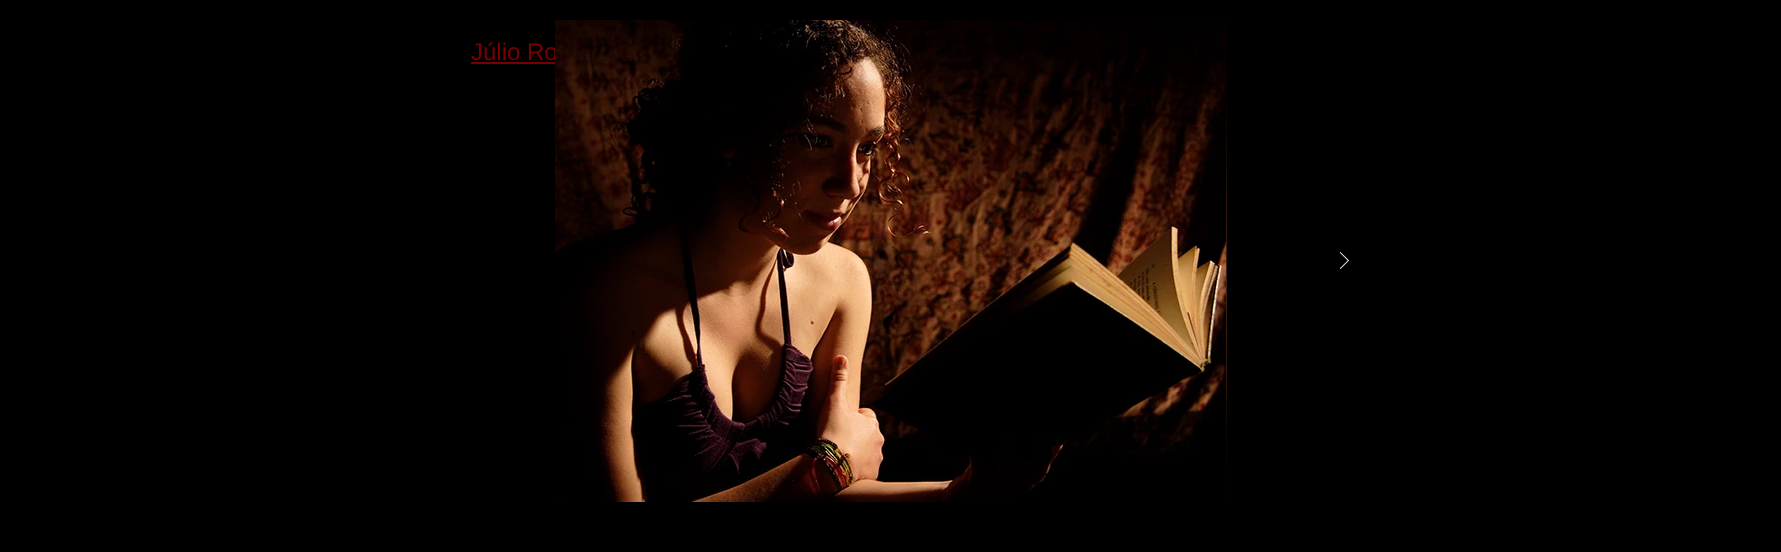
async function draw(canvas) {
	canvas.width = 1781;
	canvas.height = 552;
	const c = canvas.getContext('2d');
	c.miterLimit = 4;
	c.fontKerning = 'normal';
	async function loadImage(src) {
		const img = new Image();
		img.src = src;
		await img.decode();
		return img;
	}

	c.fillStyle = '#000';
	c.fillRect(0, 0, 1781, 552);
	c.font = '24px Liberation Sans';
	c.fillStyle = '#790000';
	c.fillText('Júlio Ro', 471, 60);
	c.fillRect(471, 62, 84, 2);
	c.drawImage(await loadImage('img1.png'), 555, 20, 671, 482);
	c.drawImage(await loadImage('img2.png'), 1226, 21, 1, 480);
	c.drawImage(await loadImage('img3.png'), 1339, 252, 10, 17);
}

draw(document.querySelector('canvas'));
